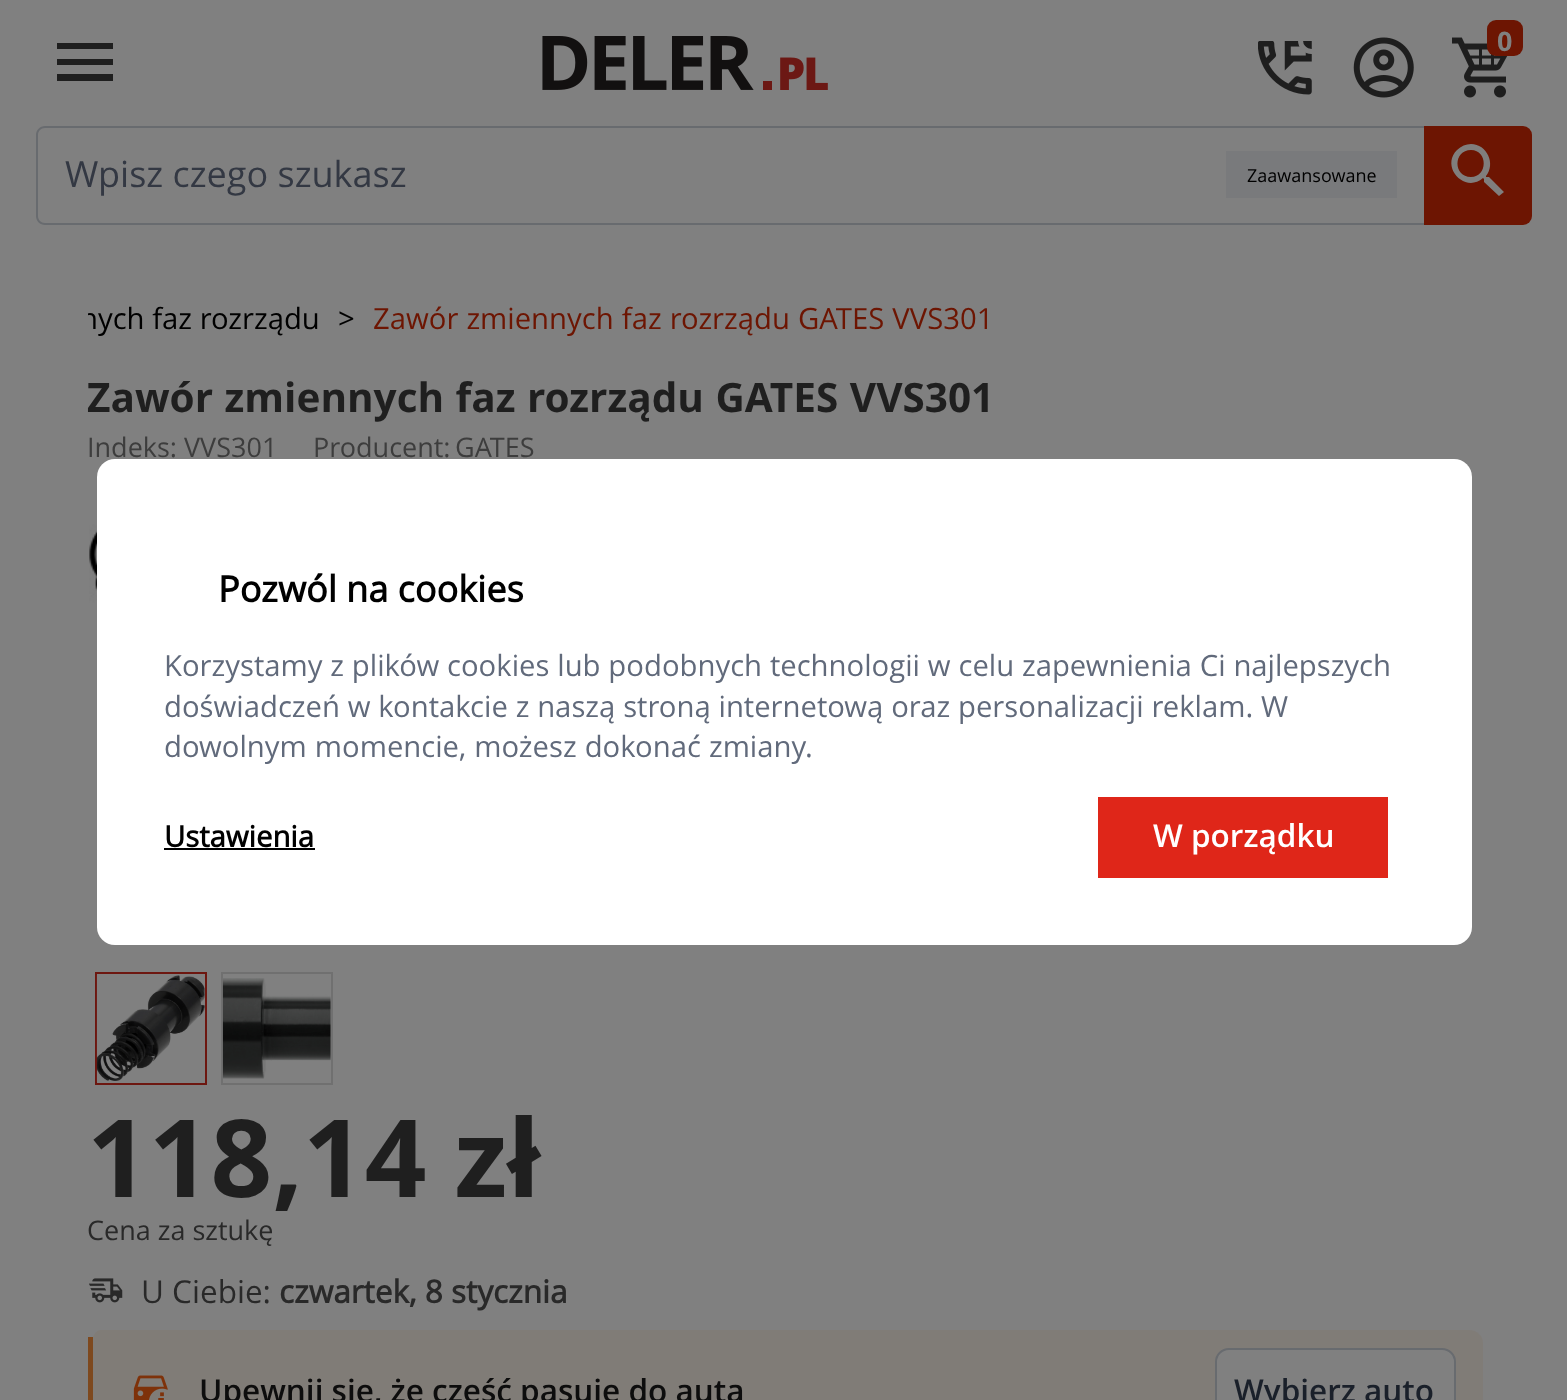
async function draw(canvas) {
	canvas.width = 1567;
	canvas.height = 1400;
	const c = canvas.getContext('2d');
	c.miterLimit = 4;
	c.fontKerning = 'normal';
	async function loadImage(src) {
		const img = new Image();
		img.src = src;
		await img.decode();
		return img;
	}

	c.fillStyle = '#808080';
	c.fillRect(0, 0, 1567, 1400);
	c.fillStyle = '#1f1f1f';
	c.beginPath();
	c.moveTo(57, 43);
	c.lineTo(113, 43);
	c.lineTo(113, 49);
	c.lineTo(57, 49);
	c.closePath();
	c.moveTo(57, 59);
	c.lineTo(113, 59);
	c.lineTo(113, 65);
	c.lineTo(57, 65);
	c.closePath();
	c.moveTo(57, 74);
	c.lineTo(113, 74);
	c.lineTo(113, 81);
	c.lineTo(57, 81);
	c.closePath();
	c.fill();
	c.drawImage(await loadImage('img1.png'), 542, 36, 286, 54);
	c.drawImage(await loadImage('img2.png'), 1258, 41, 54, 54);
	c.beginPath();
	c.arc(1311.5, 40.5, 11, 0, 2 * Math.PI);
	c.strokeStyle = '#808080';
	c.lineWidth = 5;
	c.stroke();
	c.drawImage(await loadImage('img3.png'), 1353, 37, 61, 61);
	c.drawImage(await loadImage('img4.png'), 1452, 37, 56, 61);
	c.fillStyle = '#6d1502';
	c.beginPath();
	c.roundRect(1487, 20, 36, 36, 9);
	c.fill();
	c.font = 'bold 27px Open Sans';
	c.fillStyle = '#808080';
	c.fillText('0', 1497, 51);
	c.fillStyle = '#686b6f';
	c.beginPath();
	c.moveTo(45, 126);
	c.lineTo(1226, 126);
	c.lineTo(1226, 225);
	c.lineTo(45, 225);
	c.bezierCurveTo(40, 225, 36, 221, 36, 216);
	c.lineTo(36, 135);
	c.bezierCurveTo(36, 130, 40, 126, 45, 126);
	c.closePath();
	c.moveTo(45, 128);
	c.lineTo(1226, 128);
	c.lineTo(1226, 223);
	c.lineTo(45, 223);
	c.bezierCurveTo(41, 223, 38, 220, 38, 216);
	c.lineTo(38, 135);
	c.bezierCurveTo(38, 131, 41, 128, 45, 128);
	c.closePath();
	c.fill('evenodd');
	c.font = '36px Open Sans';
	c.fillStyle = '#333843';
	c.fillText('Wpisz czego szukasz', 65, 187);
	for (const [x, y, w, h, color] of [
		[1226, 126, 198, 2, '#686b6f'],
		[1226, 223, 198, 2, '#686b6f'],
		[1226, 151, 171, 47, '#797a7c'],
	]) {
		c.fillStyle = color;
		c.fillRect(x, y, w, h);
	}
	c.font = '18px Open Sans';
	c.fillStyle = '#000';
	c.fillText('Zaawansowane', 1247, 182);
	c.fillStyle = '#6d1502';
	c.beginPath();
	c.roundRect(1424, 126, 108, 99, [0, 9, 9, 0]);
	c.fill();
	c.fillStyle = '#807e7d';
	c.beginPath();
	c.moveTo(1471, 144);
	c.bezierCurveTo(1487, 144, 1496, 164, 1486, 176);
	c.lineTo(1486, 177);
	c.lineTo(1489, 177);
	c.lineTo(1504, 192);
	c.lineTo(1499, 196);
	c.lineTo(1484, 182);
	c.lineTo(1484, 179);
	c.lineTo(1483, 178);
	c.bezierCurveTo(1465, 194, 1440, 167, 1457, 150);
	c.bezierCurveTo(1461, 146, 1466, 144, 1471, 144);
	c.closePath();
	c.moveTo(1471, 150);
	c.bezierCurveTo(1453, 150, 1453, 177, 1471, 177);
	c.bezierCurveTo(1488, 177, 1488, 150, 1471, 150);
	c.closePath();
	c.fill();
	c.save();
	c.beginPath();
	c.rect(88, 297, 907, 41);
	c.clip();
	c.font = '29.25px Open Sans';
	c.fillStyle = '#000';
	c.fillText('nych faz rozrządu', 80, 329);
	c.restore();
	c.font = '29.25px Open Sans';
	c.fillStyle = '#000';
	c.fillText('>', 338, 329);
	c.wordSpacing = '0.5px';
	c.fillStyle = '#6d1502';
	c.fillText('Zawór zmiennych faz rozrządu GATES VVS301', 373, 329);
	c.wordSpacing = '1px';
	c.font = 'bold 40.5px Open Sans';
	c.fillStyle = '#1f1f1f';
	c.fillText('Zawór zmiennych faz rozrządu GATES VVS301', 87, 412);
	c.wordSpacing = '0px';
	c.font = '27px Open Sans';
	c.fillStyle = '#3d3d3d';
	for (const [text, x, y] of [
		['Indeks: VVS301', 87, 457],
		['Producent:', 313, 457],
		['GATES', 455, 457],
	]) {
		c.fillText(text, x, y);
	}
	c.drawImage(await loadImage('img5.png'), 89, 497, 8, 116);
	c.strokeStyle = '#6d1710';
	c.lineWidth = 2;
	c.strokeRect(96, 973, 110, 111);
	c.drawImage(await loadImage('img6.png'), 96, 974, 109, 108);
	c.strokeStyle = '#707070';
	c.strokeRect(222, 973, 110, 111);
	c.drawImage(await loadImage('img7.png'), 222, 978, 109, 101);
	c.font = 'bold 108px "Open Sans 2"';
	c.fillStyle = '#1f1f1f';
	c.fillText('118,14 zł', 87, 1197);
	c.font = '27px "Open Sans 2"';
	c.fillStyle = '#292929';
	c.fillText('Cena za sztukę', 87, 1240);
	c.drawImage(await loadImage('img8.png'), 89, 1278, 34, 25);
	c.font = '31.5px Open Sans';
	c.fillText('U Ciebie:', 141, 1303);
	c.font = 'bold 31.5px "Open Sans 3"';
	c.fillText('czwartek, 8 stycznia', 279, 1303);
	c.fillStyle = '#807c77';
	c.beginPath();
	c.moveTo(101, 1330);
	c.lineTo(1469, 1330);
	c.bezierCurveTo(1477, 1330, 1483, 1336, 1483, 1343);
	c.lineTo(1483, 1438);
	c.bezierCurveTo(1483, 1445, 1477, 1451, 1469, 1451);
	c.lineTo(101, 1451);
	c.bezierCurveTo(96, 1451, 92, 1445, 92, 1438);
	c.lineTo(92, 1343);
	c.bezierCurveTo(92, 1336, 96, 1330, 101, 1330);
	c.closePath();
	c.fill();
	c.fillStyle = '#7e491e';
	c.fillRect(88, 1337, 5, 63);
	c.drawImage(await loadImage('img9.png'), 133, 1375, 35, 25);
	c.font = '600 31.5px Open Sans';
	c.fillStyle = '#0d0d0d';
	c.fillText('Upewnij się, że część pasuje do auta', 199, 1402);
	c.fillStyle = '#808080';
	c.beginPath();
	c.roundRect(1216, 1349, 239, 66, 13);
	c.fill();
	c.strokeStyle = '#686b6f';
	c.stroke();
	c.fillStyle = '#1a202a';
	c.fillText('Wybierz auto', 1234, 1402);
	c.fillStyle = '#fff';
	c.beginPath();
	c.roundRect(97, 459, 1375, 486, 18);
	c.fill();
	c.font = 'bold 36px "Open Sans 3"';
	c.fillStyle = '#000';
	c.fillText('Pozwól na cookies', 218, 602);
	c.wordSpacing = '0.25px';
	c.font = '29.25px Open Sans';
	c.fillStyle = '#616a7b';
	c.fillText('Korzystamy z plików cookies lub podobnych technologii w celu zapewnienia Ci najlepszych', 164, 676);
	c.fillText('doświadczeń w kontakcie z naszą stroną internetową oraz personalizacji reklam. W', 164, 717);
	c.wordSpacing = '0.5px';
	c.fillText('dowolnym momencie, możesz dokonać zmiany.', 164, 757);
	c.wordSpacing = '0px';
	c.font = 'bold 29.25px "Open Sans 3"';
	c.fillStyle = '#000';
	c.fillText('Ustawienia', 164, 847);
	c.fillRect(164, 848, 151, 2);
	c.fillStyle = '#df2619';
	c.fillRect(1098, 797, 290, 81);
	c.font = '600 31.5px "Open Sans 2"';
	c.fillStyle = '#fff';
	c.fillText('W porządku', 1153, 847);
}

draw(document.querySelector('canvas'));
